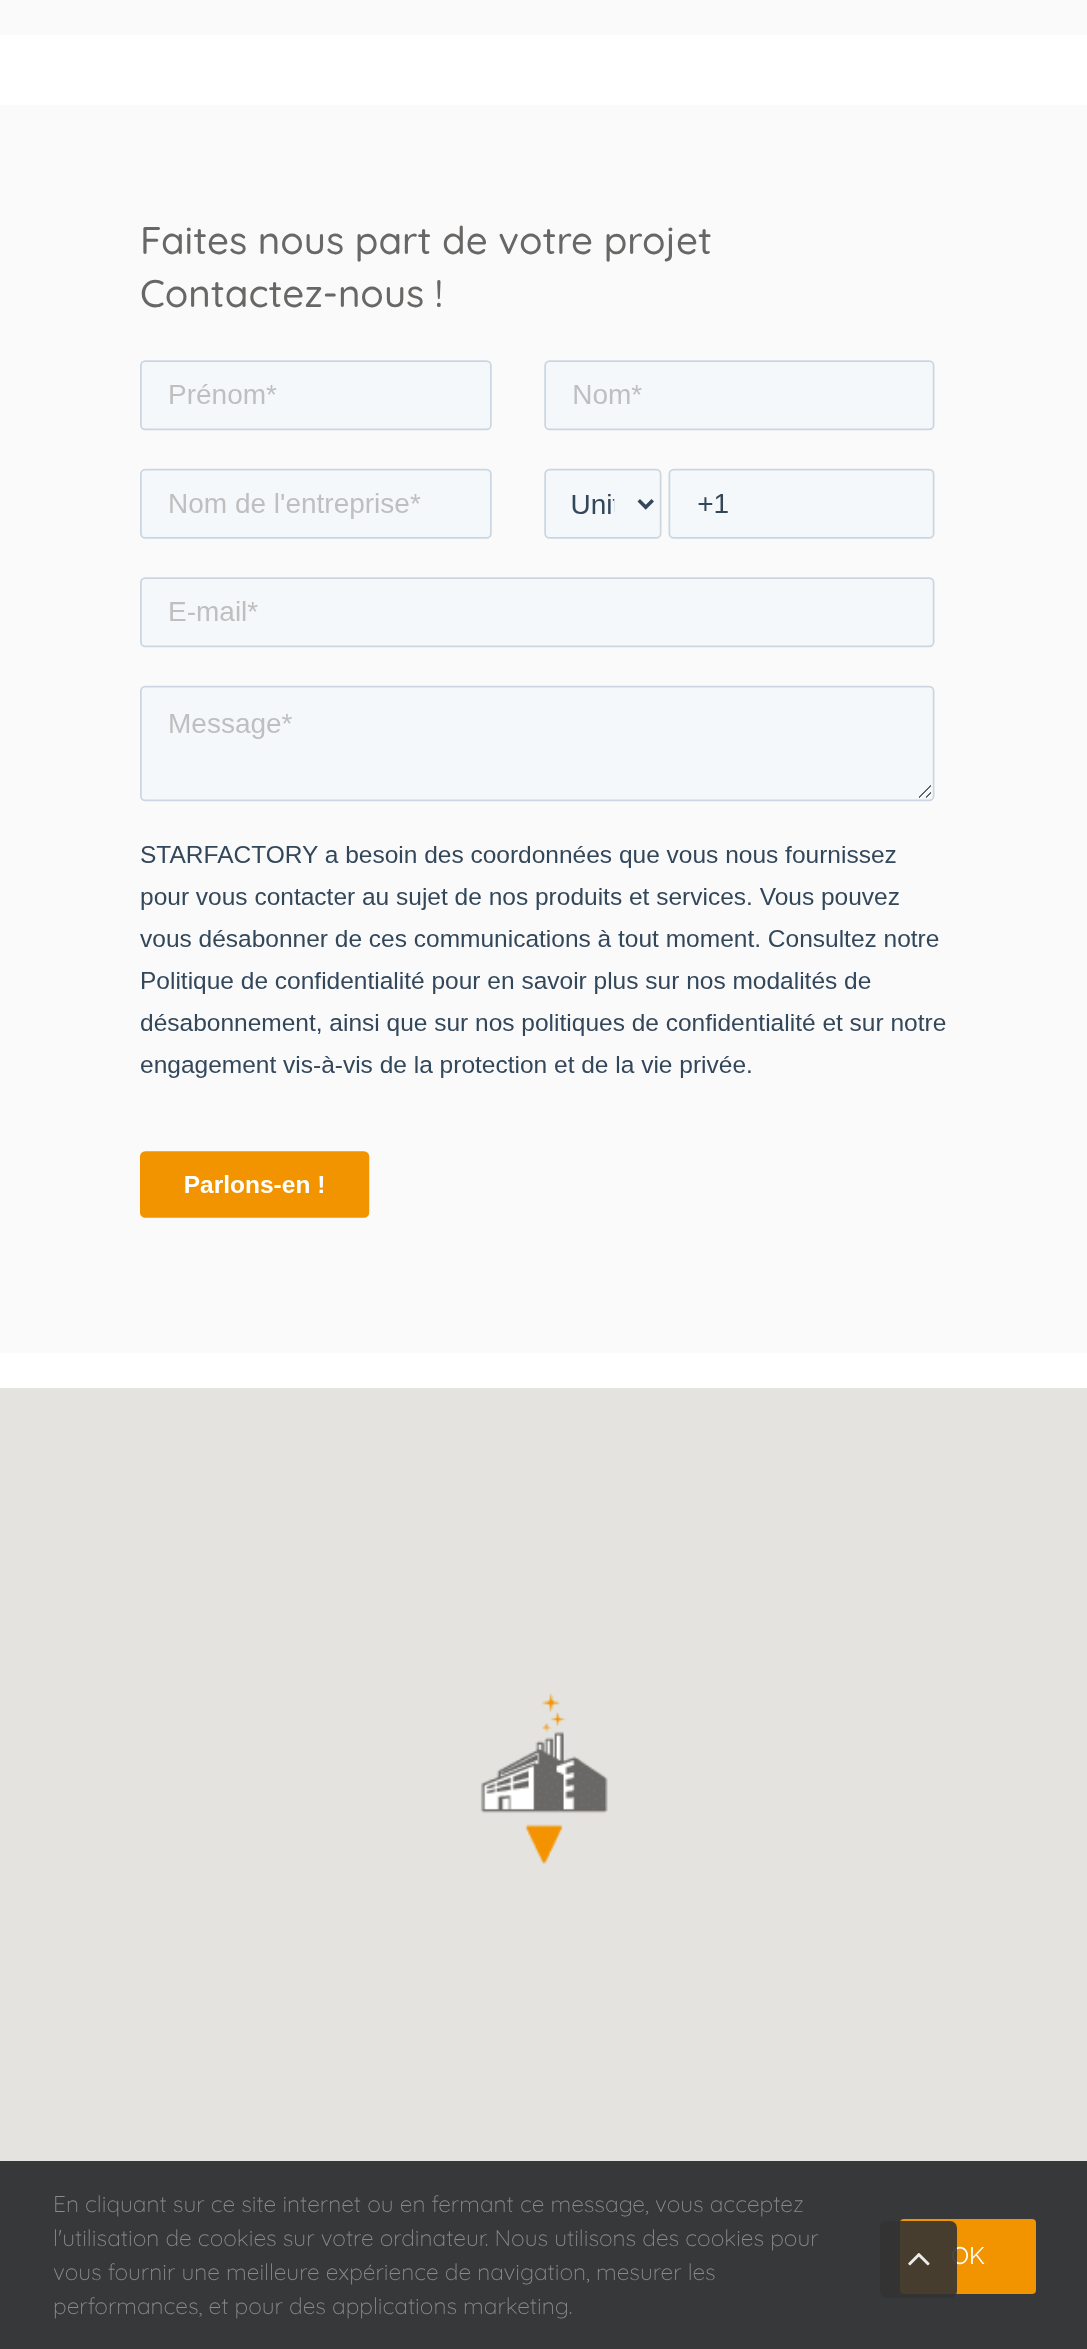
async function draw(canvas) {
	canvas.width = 1087;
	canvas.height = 2349;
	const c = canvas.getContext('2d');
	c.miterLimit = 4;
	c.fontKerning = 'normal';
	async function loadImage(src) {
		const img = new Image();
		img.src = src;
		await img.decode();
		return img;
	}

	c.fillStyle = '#fff';
	c.fillRect(0, 0, 1087, 2349);
	c.fillStyle = '#fafafa';
	c.fillRect(0, 0, 1087, 35);
	c.fillRect(0, 105, 1087, 1248);
	c.font = '500 38.5px Quicksand';
	c.fillStyle = '#686766';
	c.fillText('Faites nous part de votre projet', 140, 254);
	c.fillText('Contactez-nous !', 140, 307);
	c.drawImage(await loadImage('img1.png'), 140, 360, 806, 858);
	c.fillStyle = '#e5e3df';
	c.fillRect(0, 1388, 1087, 773);
	c.drawImage(await loadImage('img2.png'), 480, 1693, 128, 171);
	c.fillStyle = '#363839';
	c.fillRect(0, 2161, 1087, 188);
	c.font = '300 22.75px Quicksand';
	c.fillStyle = '#8c8989';
	for (const [text, x, y] of [
		['En cliquant sur ce site internet ou en fermant ce message, vous acceptez', 53, 2212],
		['l\'utilisation de cookies sur votre ordinateur. Nous utilisons des cookies pour', 53, 2246],
		['vous fournir une meilleure expérience de navigation, mesurer les', 53, 2280],
		['performances, et pour des applications marketing.', 53, 2314],
	]) {
		c.fillText(text, x, y);
	}
	c.fillStyle = '#f19400';
	c.beginPath();
	c.roundRect(900, 2219, 136, 75, 4);
	c.fill();
	c.font = '100 24px Raleway';
	c.fillStyle = '#fff';
	c.fillText('OK', 951, 2264);
	c.fillStyle = '#333333e6';
	c.beginPath();
	c.roundRect(880, 2221, 77, 77, 7);
	c.fill();
	c.drawImage(await loadImage('img3.png'), 908, 2253, 22, 13);
}

draw(document.querySelector('canvas'));
